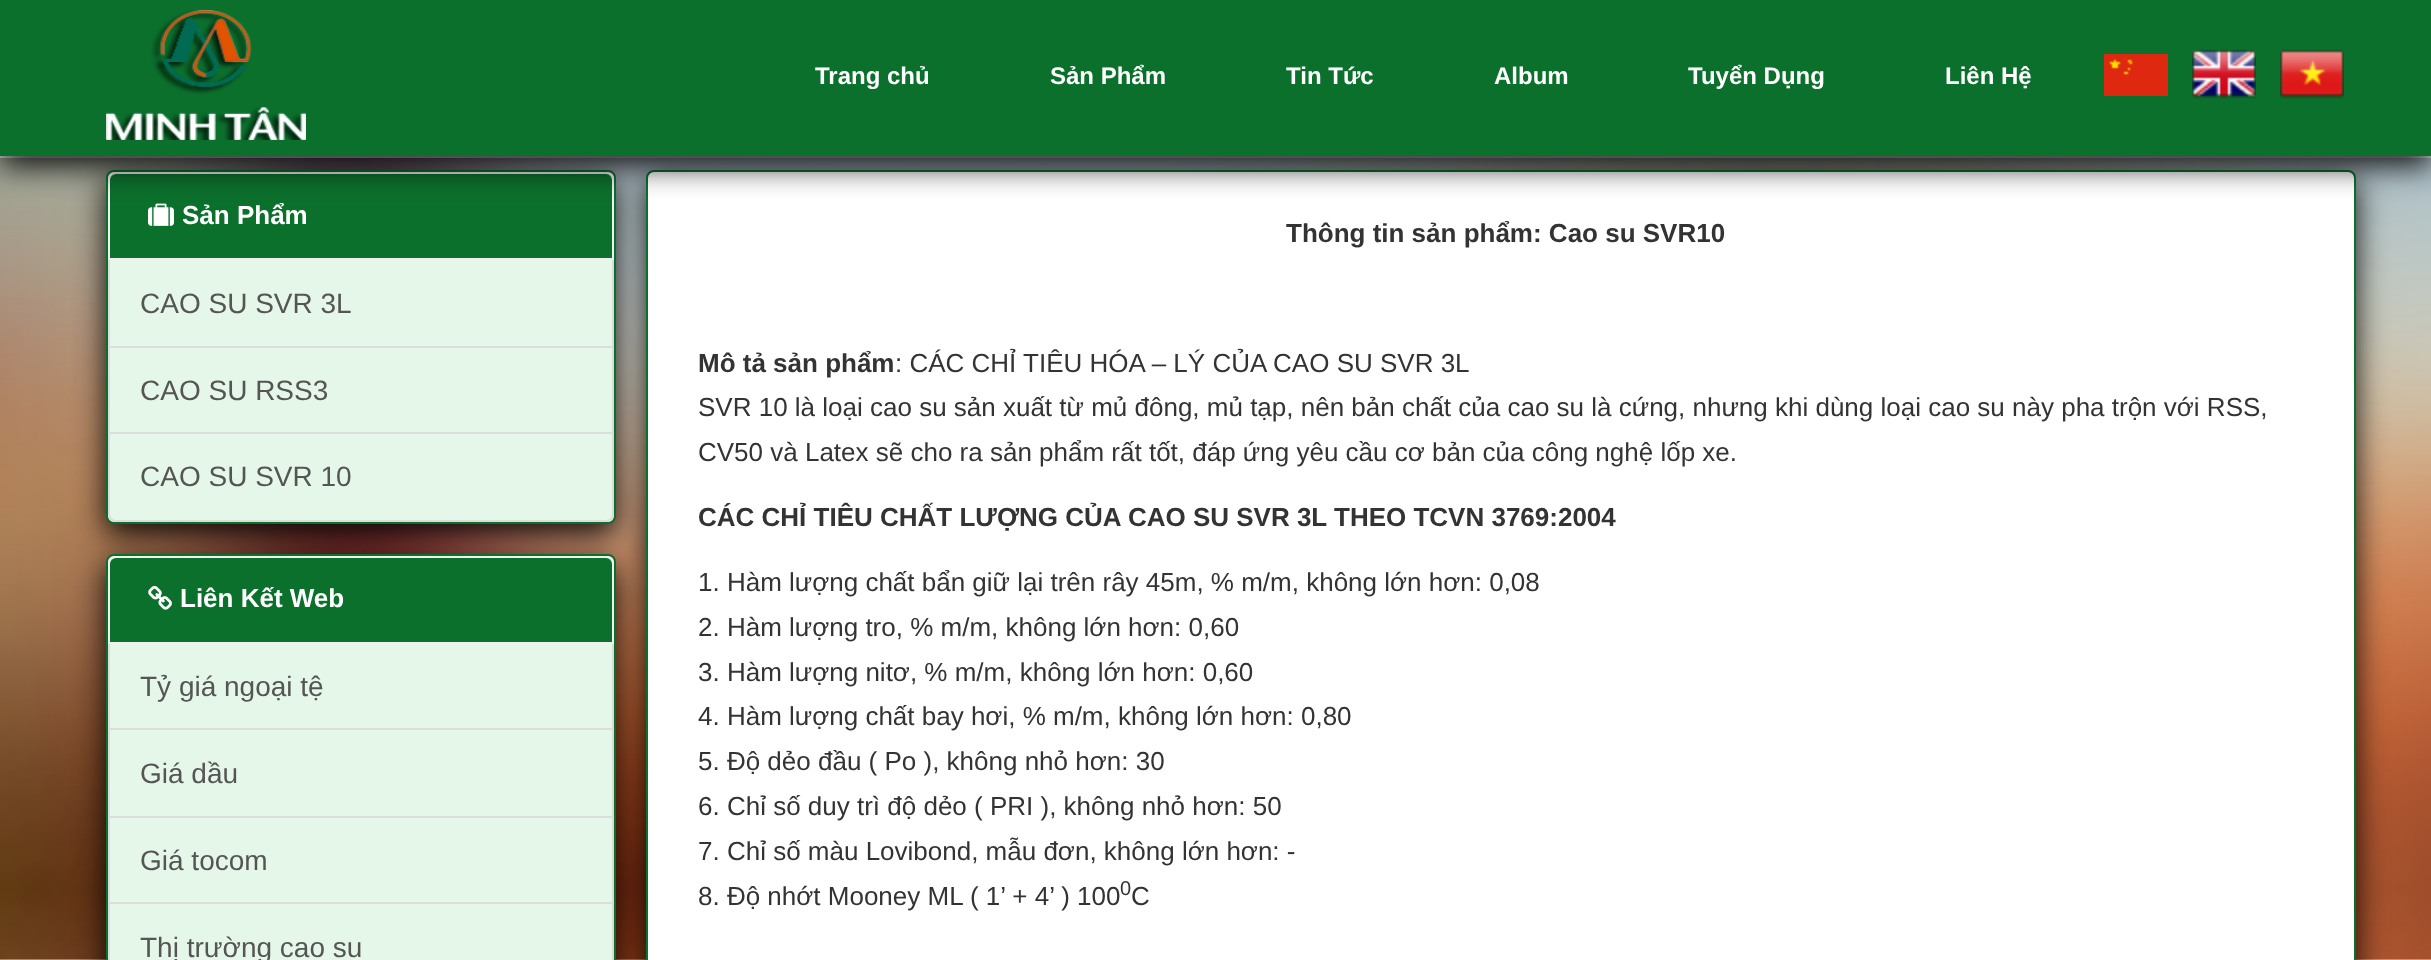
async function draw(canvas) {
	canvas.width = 2431;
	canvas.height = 960;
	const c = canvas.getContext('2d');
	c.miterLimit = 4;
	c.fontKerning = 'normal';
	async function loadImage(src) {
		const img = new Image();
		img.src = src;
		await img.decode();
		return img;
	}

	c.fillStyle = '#fff';
	c.fillRect(0, 0, 2431, 960);
	c.drawImage(await loadImage('img1.png'), 0, 158, 2431, 802);
	c.fillStyle = '#000000e6';
	c.filter = 'blur(15px)';
	c.beginPath();
	c.roundRect(106, 180, 510, 354, 8);
	c.fill();
	c.filter = 'none';
	c.fillStyle = '#fff';
	c.beginPath();
	c.roundRect(107, 171, 508, 352, 7);
	c.fill();
	c.strokeStyle = '#0c702d';
	c.lineWidth = 2;
	c.stroke();
	c.fillStyle = '#e5f7e8';
	c.beginPath();
	c.rect(109, 259, 504, 88);
	c.fill();
	c.strokeStyle = '#ddd';
	c.stroke();
	c.beginPath();
	c.rect(109, 347, 504, 86);
	c.fill();
	c.stroke();
	c.fillStyle = '#000000e6';
	c.filter = 'blur(15px)';
	c.beginPath();
	c.roundRect(106, 564, 510, 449, 8);
	c.fill();
	c.filter = 'none';
	c.fillStyle = '#e5f7e8';
	c.beginPath();
	c.roundRect(109, 433, 504, 88, [0, 0, 7, 7]);
	c.fill();
	c.stroke();
	c.fillStyle = '#fff';
	c.beginPath();
	c.roundRect(107, 555, 508, 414, 7);
	c.fill();
	c.strokeStyle = '#0c702d';
	c.stroke();
	c.fillStyle = '#e5f7e8';
	c.beginPath();
	c.rect(109, 643, 504, 86);
	c.fill();
	c.strokeStyle = '#ddd';
	c.stroke();
	c.beginPath();
	c.rect(109, 729, 504, 88);
	c.fill();
	c.stroke();
	c.beginPath();
	c.rect(109, 817, 504, 86);
	c.fill();
	c.stroke();
	c.beginPath();
	c.rect(109, 903, 504, 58);
	c.fill();
	c.stroke();
	c.fillStyle = '#000000e6';
	c.filter = 'blur(15px)';
	c.beginPath();
	c.roundRect(646, 180, 1710, 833, 8);
	c.fill();
	c.filter = 'none';
	c.fillStyle = '#e7e7e7';
	c.fillRect(0, 156, 2431, 2);
	c.fillStyle = '#0c702d';
	c.beginPath();
	c.roundRect(109, 173, 504, 86, [7, 7, 0, 0]);
	c.fill();
	c.strokeStyle = '#f0f0f0';
	c.stroke();
	c.drawImage(await loadImage('img6.png'), 148, 203, 26, 23);
	c.fillStyle = '#fff';
	c.beginPath();
	c.roundRect(647, 171, 1708, 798, 7);
	c.fill();
	c.strokeStyle = '#0c702d';
	c.stroke();
	c.fillStyle = '#000000e6';
	c.filter = 'blur(15px)';
	c.beginPath();
	c.rect(0, 10, 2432, 156);
	c.fill();
	c.filter = 'none';
	c.fillStyle = '#0c702d';
	c.fillRect(0, 0, 2431, 156);
	c.drawImage(await loadImage('img2.png'), 106, 10, 200, 130);
	c.font = 'bold 24px Liberation Sans';
	c.fillStyle = '#fff';
	for (const [text, x, y] of [
		['Trang chủ', 815, 84],
		['Sản Phẩm', 1050, 84],
		['Tin Tức', 1286, 84],
		['Album', 1494, 84],
		['Tuyển Dụng', 1688, 84],
		['Liên Hệ', 1945, 84],
	]) {
		c.fillText(text, x, y);
	}
	c.drawImage(await loadImage('img3.png'), 2104, 54, 64, 42);
	c.drawImage(await loadImage('img4.png'), 2192, 49, 64, 50);
	c.drawImage(await loadImage('img5.png'), 2280, 49, 64, 50);
	c.font = 'bold 26px Liberation Sans';
	c.fillText('Sản Phẩm', 182, 224);
	c.font = '28px Liberation Sans';
	c.fillStyle = '#555';
	for (const [text, x, y] of [
		['CAO SU SVR 3L', 140, 313],
		['CAO SU RSS3', 140, 400],
		['CAO SU SVR 10', 140, 486],
	]) {
		c.fillText(text, x, y);
	}
	c.fillStyle = '#0c702d';
	c.beginPath();
	c.roundRect(109, 557, 504, 86, [7, 7, 0, 0]);
	c.fill();
	c.strokeStyle = '#f0f0f0';
	c.stroke();
	c.drawImage(await loadImage('img7.png'), 148, 585, 24, 25);
	c.font = 'bold 26px Liberation Sans';
	c.fillStyle = '#fff';
	c.fillText('Liên Kết Web', 180, 607);
	c.font = '28px Liberation Sans';
	c.fillStyle = '#555';
	for (const [text, x, y] of [
		['Tỷ giá ngoại tệ', 140, 696],
		['Giá dầu', 140, 783],
		['Giá tocom', 140, 870],
		['Thị trường cao su', 140, 957],
	]) {
		c.fillText(text, x, y);
	}
	c.font = 'bold 26px Liberation Sans';
	c.fillStyle = '#333';
	c.fillText('Thông tin sản phẩm: Cao su SVR10', 1286, 242);
	c.fillText('Mô tả sản phẩm', 698, 372);
	c.font = '26px Liberation Sans';
	for (const [text, x, y] of [
		[': CÁC CHỈ TIÊU HÓA – LÝ CỦA CAO SU SVR 3L', 895, 372],
		['SVR 10 là loại cao su sản xuất từ mủ đông, mủ tạp, nên bản chất của cao su là cứng, nhưng khi dùng loại cao su này pha trộn với RSS,', 698, 416],
		['CV50 và Latex sẽ cho ra sản phẩm rất tốt, đáp ứng yêu cầu cơ bản của công nghệ lốp xe.', 698, 461],
	]) {
		c.fillText(text, x, y);
	}
	c.font = 'bold 26px Liberation Sans';
	c.fillText('CÁC CHỈ TIÊU CHẤT LƯỢNG CỦA CAO SU SVR 3L THEO TCVN 3769:2004', 698, 526);
	c.font = '26px Liberation Sans';
	for (const [text, x, y] of [
		['1. Hàm lượng chất bẩn giữ lại trên rây 45m, % m/m, không lớn hơn: 0,08', 698, 591],
		['2. Hàm lượng tro, % m/m, không lớn hơn: 0,60', 698, 636],
		['3. Hàm lượng nitơ, % m/m, không lớn hơn: 0,60', 698, 681],
		['4. Hàm lượng chất bay hơi, % m/m, không lớn hơn: 0,80', 698, 725],
		['5. Độ dẻo đầu ( Po ), không nhỏ hơn: 30', 698, 770],
		['6. Chỉ số duy trì độ dẻo ( PRI ), không nhỏ hơn: 50', 698, 815],
		['7. Chỉ số màu Lovibond, mẫu đơn, không lớn hơn: -', 698, 860],
		['8. Độ nhớt Mooney ML ( 1’ + 4’ ) 100', 698, 905],
	]) {
		c.fillText(text, x, y);
	}
	c.font = '20px Liberation Sans';
	c.fillText('0', 1120, 895);
	c.font = '26px Liberation Sans';
	c.fillText('C', 1131, 905);
}

draw(document.querySelector('canvas'));
